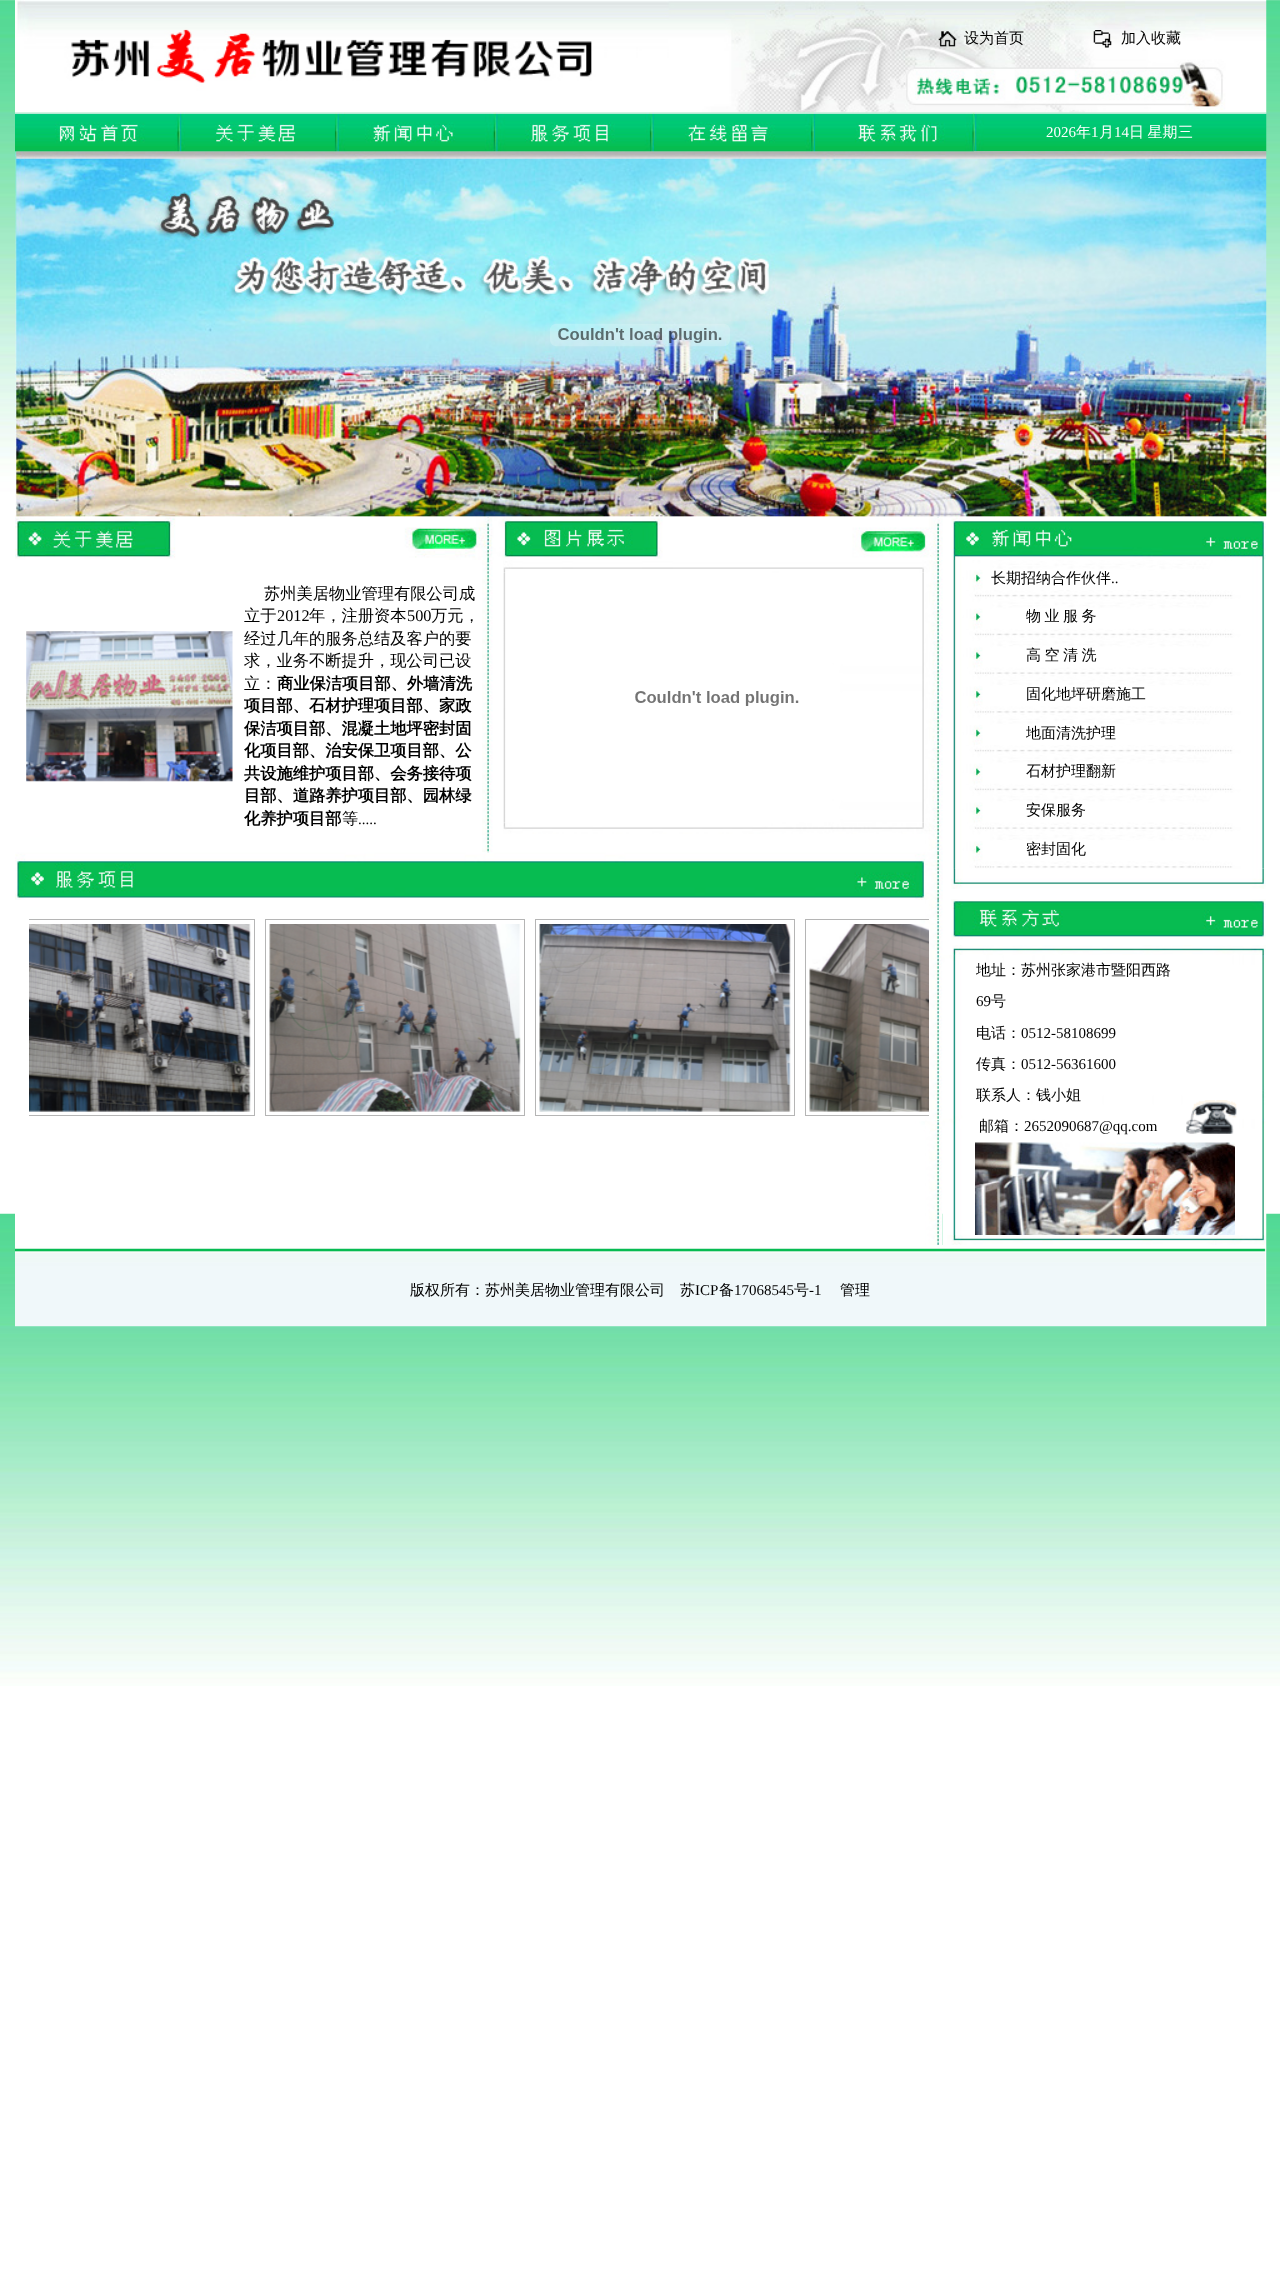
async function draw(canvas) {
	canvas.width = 1280;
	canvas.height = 2278;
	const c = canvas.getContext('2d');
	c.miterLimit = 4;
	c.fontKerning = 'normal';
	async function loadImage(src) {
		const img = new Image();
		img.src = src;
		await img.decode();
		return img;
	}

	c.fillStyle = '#fff';
	c.fillRect(0, 0, 1280, 2278);
	c.drawImage(await loadImage('img1.png'), 0, 0, 1280, 1686);
	c.drawImage(await loadImage('img2.png'), 15, 0, 1252, 113);
	c.drawImage(await loadImage('img3.png'), 938, 31, 19, 16);
	c.font = '500 15px WenQuanYi Zen Hei';
	c.fillStyle = '#000';
	c.fillText('设为首页', 964, 43);
	c.drawImage(await loadImage('img4.png'), 1093, 30, 19, 18);
	c.fillText('加入收藏', 1121, 43);
	c.drawImage(await loadImage('img6.png'), 973, 112, 294, 40);
	c.drawImage(await loadImage('img7.png'), 15, 151, 1252, 367);
	c.drawImage(await loadImage('img5.png'), 15, 112, 959, 40);
	c.font = '15px Liberation Serif';
	c.fillStyle = '#fff';
	c.fillText('2026', 1046, 137);
	c.font = '500 15px WenQuanYi Zen Hei';
	c.fillText('年', 1076, 137);
	c.font = '15px Liberation Serif';
	c.fillText('1', 1091, 137);
	c.font = '500 15px WenQuanYi Zen Hei';
	c.fillText('月', 1099, 137);
	c.font = '15px Liberation Serif';
	c.fillText('14', 1114, 137);
	c.wordSpacing = '-1px';
	c.font = '500 15px WenQuanYi Zen Hei';
	c.fillText('日 星期', 1129, 137);
	c.wordSpacing = '0px';
	c.fillText('三', 1178, 137);
	c.drawImage(await loadImage('img8.png'), 550, 323, 180, 24);
	c.drawImage(await loadImage('img9.png'), 15, 517, 928, 728);
	c.drawImage(await loadImage('img10.png'), 482, 517, 11, 336);
	c.drawImage(await loadImage('img11.png'), 15, 517, 478, 43);
	c.drawImage(await loadImage('img12.png'), 26, 631, 207, 151);
	c.font = '500 16.25px WenQuanYi Zen Hei';
	c.fillStyle = '#000';
	c.fillText('苏州美居物业管理有限公司成', 264, 599);
	c.fillText('立于', 244, 621);
	c.font = '16.25px Liberation Serif';
	c.fillText('2012', 277, 621);
	c.font = '500 16.25px WenQuanYi Zen Hei';
	c.fillText('年，注册资本', 309, 621);
	c.font = '16.25px Liberation Serif';
	c.fillText('500', 407, 621);
	c.font = '500 16.25px WenQuanYi Zen Hei';
	for (const [text, x, y] of [
		['万元，', 431, 621],
		['经过几年的服务总结及客户的要', 244, 644],
		['求，业务不断提升，现公司已设', 244, 666],
		['立：', 244, 689],
	]) {
		c.fillText(text, x, y);
	}
	c.font = 'bold 16.25px WenQuanYi Zen Hei';
	for (const [text, x, y] of [
		['商业保洁项目部、外墙清洗', 277, 689],
		['项目部、石材护理项目部、家政', 244, 711],
		['保洁项目部、混凝土地坪密封固', 244, 734],
		['化项目部、治安保卫项目部、公', 244, 756],
		['共设施维护项目部、会务接待项', 244, 779],
		['目部、道路养护项目部、园林绿', 244, 801],
		['化养护项目部', 244, 824],
	]) {
		c.fillText(text, x, y);
	}
	c.font = '500 16.25px WenQuanYi Zen Hei';
	c.fillText('等', 342, 824);
	c.font = '15px Liberation Serif';
	c.fillText('.....', 358, 824);
	c.drawImage(await loadImage('img13.png'), 492, 517, 451, 43);
	c.drawImage(await loadImage('img15.png'), 503, 572, 440, 251);
	c.drawImage(await loadImage('img14.png'), 503, 560, 437, 13);
	c.drawImage(await loadImage('img16.png'), 635, 691, 164, 15);
	c.drawImage(await loadImage('img17.png'), 503, 822, 437, 12);
	c.drawImage(await loadImage('img18.png'), 15, 852, 928, 48);
	c.save();
	c.beginPath();
	c.rect(29, 910, 900, 213);
	c.clip();
	c.strokeStyle = '#b5b5b5';
	c.strokeRect(-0.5, 919.5, 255, 196);
	c.restore();
	c.drawImage(await loadImage('img19.png'), 29, 924, 222, 188);
	c.strokeStyle = '#b5b5b5';
	c.strokeRect(265.5, 919.5, 259, 196);
	c.drawImage(await loadImage('img20.png'), 269, 924, 252, 188);
	c.strokeRect(535.5, 919.5, 259, 196);
	c.drawImage(await loadImage('img21.png'), 539, 924, 252, 188);
	c.drawImage(await loadImage('img27.png'), 951, 899, 315, 41);
	c.drawImage(await loadImage('img28.png'), 952, 945, 314, 10);
	c.drawImage(await loadImage('img29.png'), 942, 955, 325, 280);
	c.font = '500 15px WenQuanYi Zen Hei';
	c.fillText('地址：苏州张家港市暨阳西路', 976, 975);
	c.font = '15px Liberation Serif';
	c.fillText('0512-58108699', 1021, 1038);
	c.fillText('0512-56361600', 1021, 1069);
	c.font = '500 15px WenQuanYi Zen Hei';
	c.fillText('联系人：钱小姐', 976, 1100);
	c.save();
	c.beginPath();
	c.rect(29, 910, 900, 213);
	c.clip();
	c.strokeRect(805.5, 919.5, 259, 196);
	c.restore();
	c.drawImage(await loadImage('img22.png'), 809, 924, 120, 188);
	c.drawImage(await loadImage('img23.png'), 951, 517, 315, 43);
	c.drawImage(await loadImage('img24.png'), 953, 560, 312, 309);
	c.fillText('长期招纳合作伙伴', 991, 583);
	c.font = '15px Liberation Serif';
	c.fillText('..', 1111, 583);
	c.drawImage(await loadImage('img25.png'), 953, 598, 2, 271);
	c.wordSpacing = '-1px';
	c.font = '500 15px WenQuanYi Zen Hei';
	c.fillText('物 业 服 务', 1026, 621);
	c.fillText('高 空 清 洗', 1026, 660);
	c.wordSpacing = '0px';
	for (const [text, x, y] of [
		['固化地坪研磨施工', 1026, 699],
		['地面清洗护理', 1026, 738],
		['石材护理翻新', 1026, 776],
		['安保服务', 1026, 815],
		['密封固化', 1026, 854],
	]) {
		c.fillText(text, x, y);
	}
	c.drawImage(await loadImage('img26.png'), 951, 868, 315, 21);
	c.font = '15px Liberation Serif';
	c.fillText('69', 976, 1006);
	c.font = '500 15px WenQuanYi Zen Hei';
	for (const [text, x, y] of [
		['号', 991, 1006],
		['电话：', 976, 1038],
		['传真：', 976, 1069],
		['邮箱：', 979, 1131],
	]) {
		c.fillText(text, x, y);
	}
	c.font = '15px Liberation Serif';
	c.fillText('2652090687@qq.com', 1024, 1131);
	c.drawImage(await loadImage('img30.png'), 1186, 1100, 51, 34);
	c.drawImage(await loadImage('img31.png'), 975, 1142, 260, 93);
	c.drawImage(await loadImage('img32.png'), 942, 1235, 325, 10);
	c.drawImage(await loadImage('img33.png'), 15, 1245, 1252, 10);
	c.drawImage(await loadImage('img34.png'), 15, 1255, 1252, 72);
	c.font = '500 15px WenQuanYi Zen Hei';
	c.fillText('版权所有：苏州美居物业管理有限公司', 410, 1295);
	c.fillText('苏', 680, 1295);
	c.font = '15px Liberation Serif';
	c.fillText('ICP', 695, 1295);
	c.font = '500 15px WenQuanYi Zen Hei';
	c.fillText('备', 719, 1295);
	c.font = '15px Liberation Serif';
	c.fillText('17068545', 734, 1295);
	c.font = '500 15px WenQuanYi Zen Hei';
	c.fillText('号', 794, 1295);
	c.font = '15px Liberation Serif';
	c.fillText('-1', 809, 1295);
	c.font = '500 15px WenQuanYi Zen Hei';
	c.fillText('管理', 840, 1295);
}

draw(document.querySelector('canvas'));
